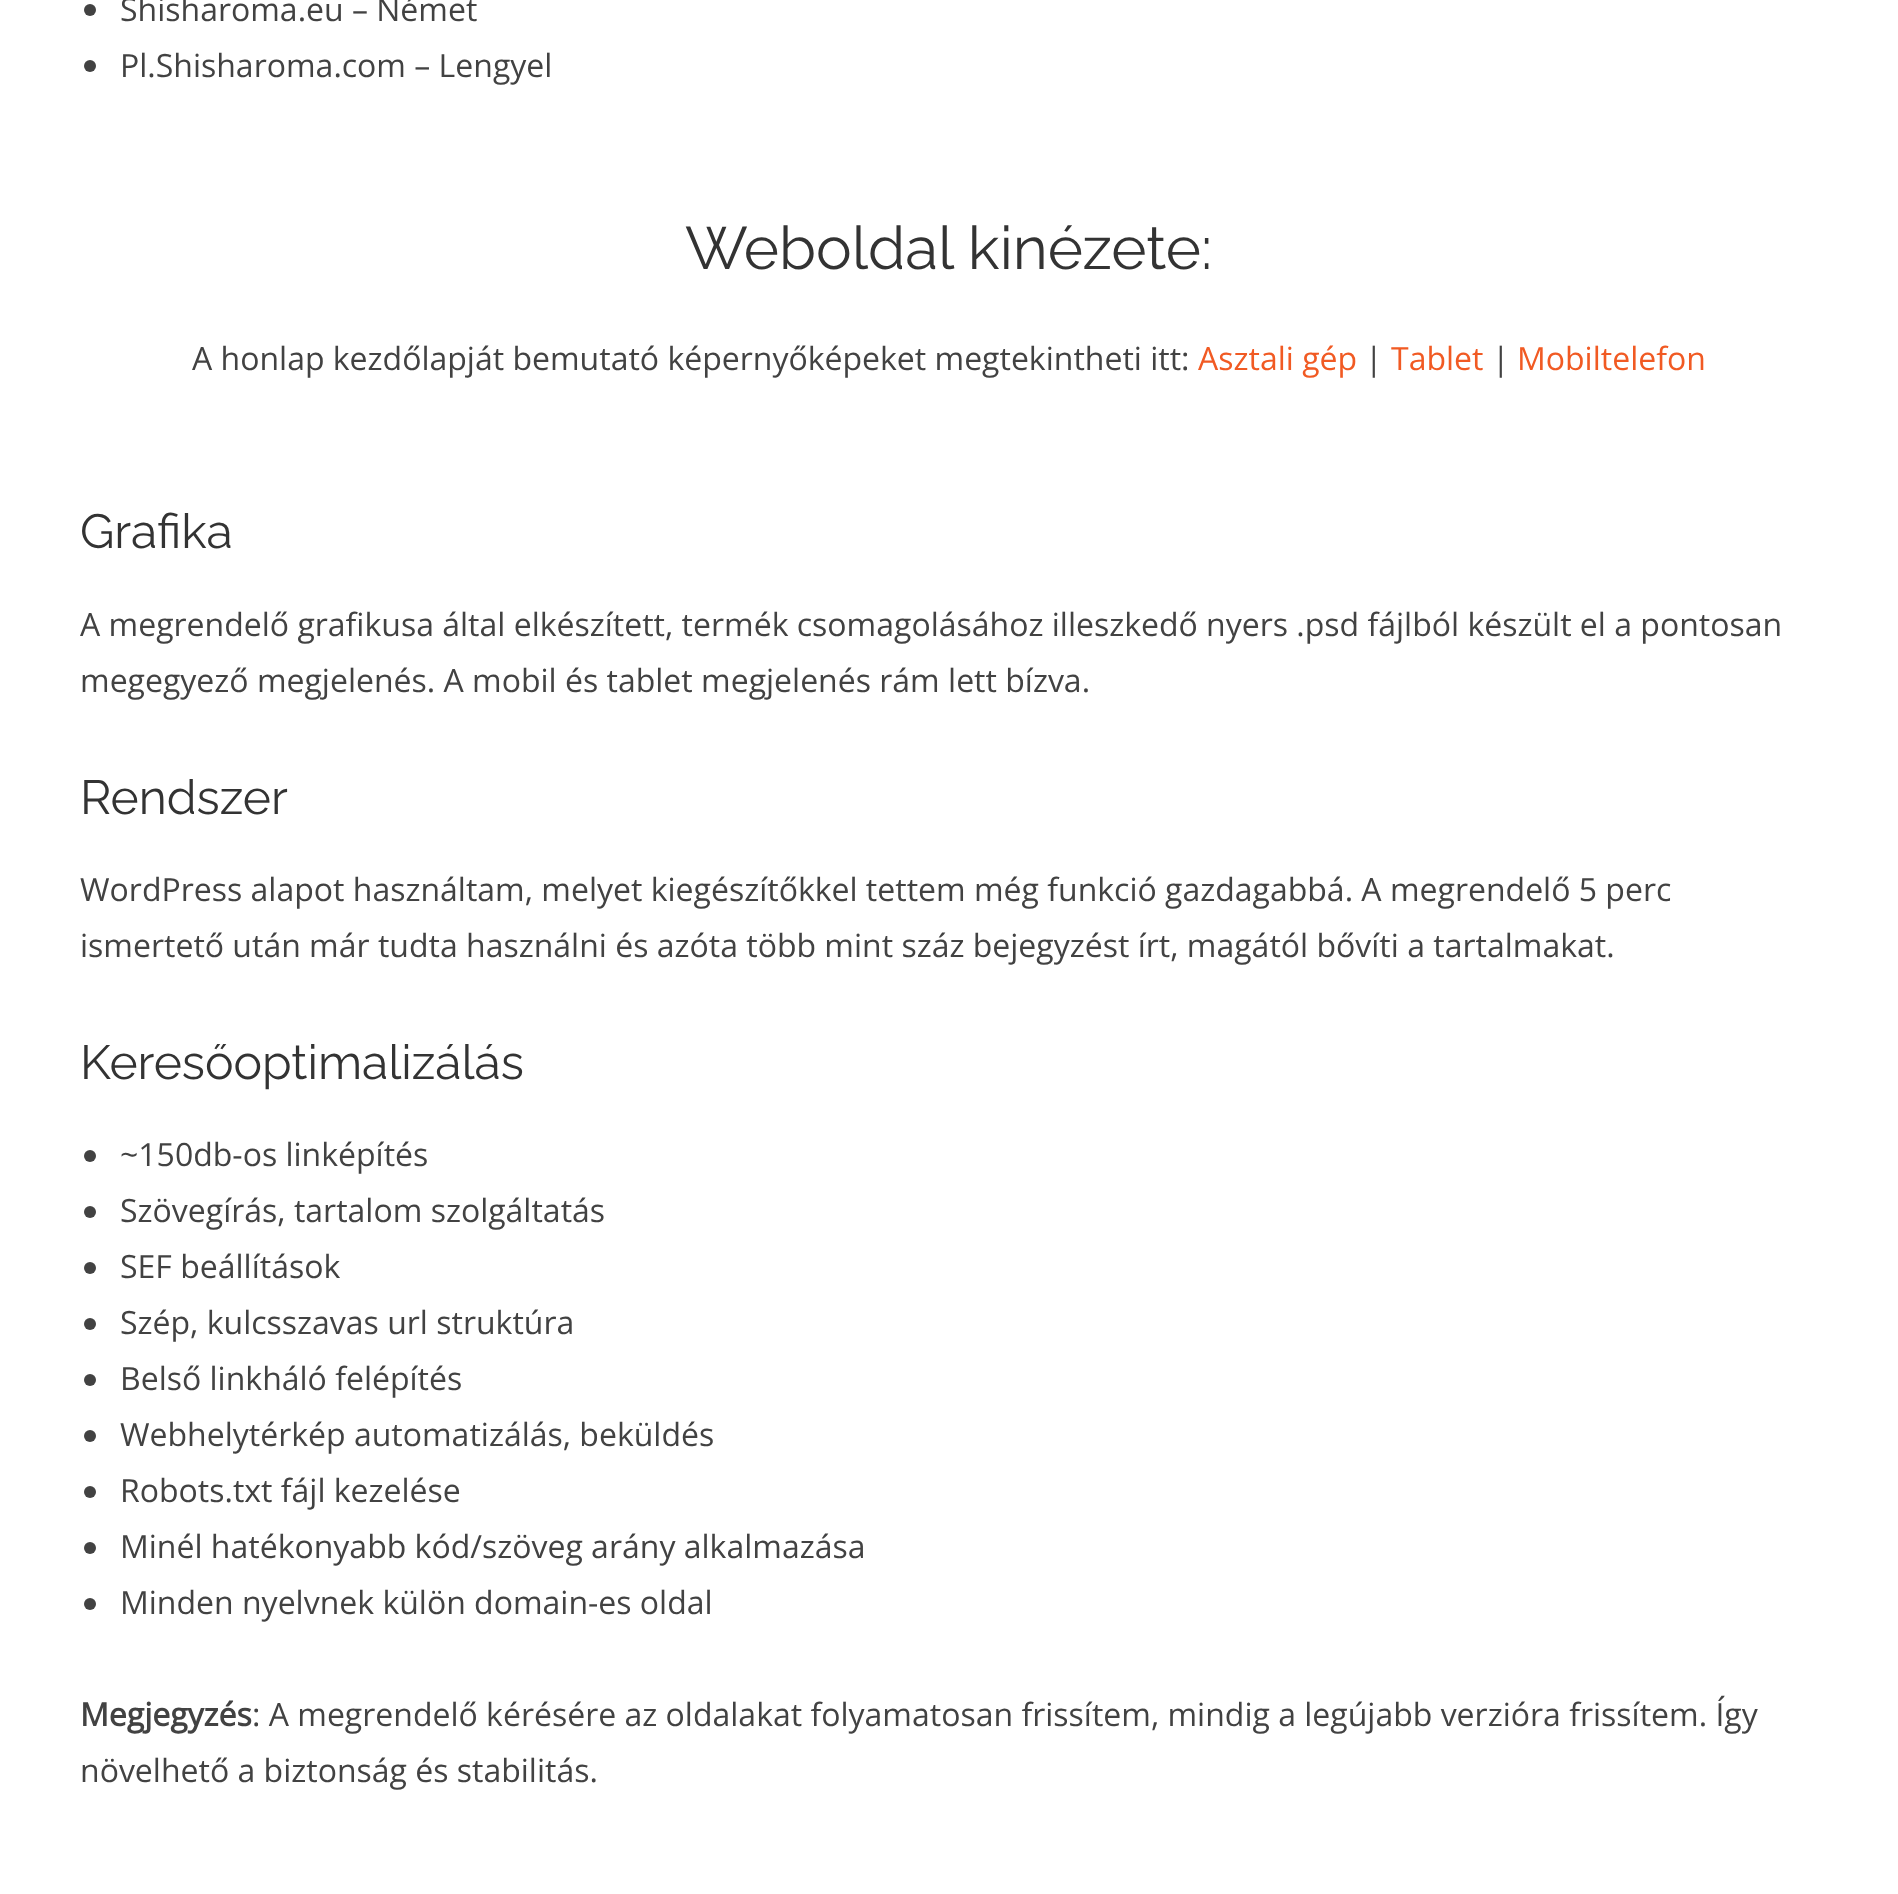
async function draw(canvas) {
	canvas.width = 1898;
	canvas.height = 1894;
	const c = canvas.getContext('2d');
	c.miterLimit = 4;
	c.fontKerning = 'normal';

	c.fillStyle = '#fff';
	c.fillRect(0, 0, 1898, 1894);
	c.fillStyle = '#424242';
	c.beginPath();
	c.arc(90, 10, 6, 0, 2 * Math.PI);
	c.fill();
	c.font = '32px Open Sans';
	c.fillText('Shisharoma.eu – Német', 120, 21);
	c.beginPath();
	c.arc(90, 66, 6, 0, 2 * Math.PI);
	c.fill();
	c.fillText('Pl.Shisharoma.com – Lengyel', 120, 77);
	c.font = '100 60px Raleway';
	c.fillStyle = '#333';
	c.fillText('Weboldal kinézete:', 685, 269);
	c.font = '32px Open Sans';
	c.fillStyle = '#424242';
	c.fillText('A honlap kezdőlapját bemutató képernyőképeket megtekintheti itt:', 192, 370);
	c.fillStyle = '#f15a23';
	c.fillText('Asztali gép', 1198, 370);
	c.fillStyle = '#424242';
	c.fillText('|', 1365, 370);
	c.fillStyle = '#f15a23';
	c.fillText('Tablet', 1391, 370);
	c.fillStyle = '#424242';
	c.fillText('|', 1492, 370);
	c.fillStyle = '#f15a23';
	c.fillText('Mobiltelefon', 1517, 370);
	c.font = '100 48px Raleway';
	c.fillStyle = '#333';
	c.fillText('Grafika', 80, 548);
	c.font = '32px Open Sans';
	c.fillStyle = '#424242';
	c.fillText('A megrendelő grafikusa által elkészített, termék csomagolásához illeszkedő nyers .psd fájlból készült el a pontosan', 80, 636);
	c.fillText('megegyező megjelenés. A mobil és tablet megjelenés rám lett bízva.', 80, 692);
	c.font = '100 48px Raleway';
	c.fillStyle = '#333';
	c.fillText('Rendszer', 80, 814);
	c.font = '32px Open Sans';
	c.fillStyle = '#424242';
	c.fillText('WordPress alapot használtam, melyet kiegészítőkkel tettem még funkció gazdagabbá. A megrendelő 5 perc', 80, 901);
	c.fillText('ismertető után már tudta használni és azóta több mint száz bejegyzést írt, magától bővíti a tartalmakat.', 80, 957);
	c.font = '100 48px Raleway';
	c.fillStyle = '#333';
	c.fillText('Keresőoptimalizálás', 80, 1079);
	c.fillStyle = '#424242';
	c.beginPath();
	c.arc(90, 1156, 6, 0, 2 * Math.PI);
	c.fill();
	c.font = '32px Open Sans';
	c.fillText('~150db-os linképítés', 120, 1166);
	c.beginPath();
	c.arc(90, 1212, 6, 0, 2 * Math.PI);
	c.fill();
	c.fillText('Szövegírás, tartalom szolgáltatás', 120, 1222);
	c.beginPath();
	c.arc(90, 1268, 6, 0, 2 * Math.PI);
	c.fill();
	c.fillText('SEF beállítások', 120, 1278);
	c.beginPath();
	c.arc(90, 1324, 6, 0, 2 * Math.PI);
	c.fill();
	c.fillText('Szép, kulcsszavas url struktúra', 120, 1334);
	c.beginPath();
	c.arc(90, 1380, 6, 0, 2 * Math.PI);
	c.fill();
	c.fillText('Belső linkháló felépítés', 120, 1390);
	c.beginPath();
	c.arc(90, 1436, 6, 0, 2 * Math.PI);
	c.fill();
	c.fillText('Webhelytérkép automatizálás, beküldés', 120, 1446);
	c.beginPath();
	c.arc(90, 1492, 6, 0, 2 * Math.PI);
	c.fill();
	c.fillText('Robots.txt fájl kezelése', 120, 1502);
	c.beginPath();
	c.arc(90, 1548, 6, 0, 2 * Math.PI);
	c.fill();
	c.fillText('Minél hatékonyabb kód/szöveg arány alkalmazása', 120, 1558);
	c.beginPath();
	c.arc(90, 1604, 6, 0, 2 * Math.PI);
	c.fill();
	c.fillText('Minden nyelvnek külön domain-es oldal', 120, 1614);
	c.font = 'bold 32px Open Sans';
	c.fillText('Megjegyzés', 80, 1726);
	c.font = '32px Open Sans';
	c.fillText(': A megrendelő kérésére az oldalakat folyamatosan frissítem, mindig a legújabb verzióra frissítem. Így', 252, 1726);
	c.fillText('növelhető a biztonság és stabilitás.', 80, 1782);
}

draw(document.querySelector('canvas'));
